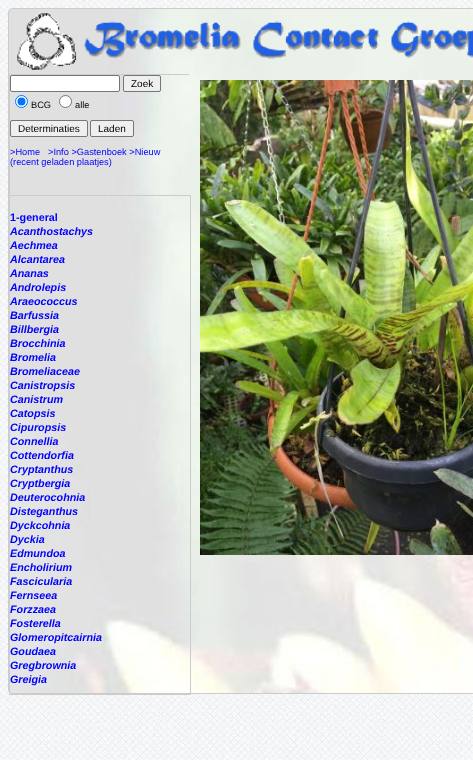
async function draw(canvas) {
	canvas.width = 473;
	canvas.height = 760;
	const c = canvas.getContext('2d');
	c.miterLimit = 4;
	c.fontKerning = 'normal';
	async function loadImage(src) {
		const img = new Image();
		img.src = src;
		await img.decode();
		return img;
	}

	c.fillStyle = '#fff';
	c.fillRect(0, 0, 473, 760);
	c.drawImage(await loadImage('img1.png'), 0, 0, 473, 760);
	c.drawImage(await loadImage('img2.png'), 8, 8, 465, 686);
	c.beginPath();
	c.roundRect(8.5, 8.5, 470, 685, 4.5);
	c.strokeStyle = '#ccc';
	c.stroke();
	c.drawImage(await loadImage('img3.png'), 17, 13, 456, 57);
	c.save();
	c.beginPath();
	c.rect(9, 74, 180, 619);
	c.clip();
	c.strokeRect(9.5, 74.5, 181, 121);
	c.restore();
	c.beginPath();
	c.roundRect(10.5, 75.5, 109, 16, 1.5);
	c.fill();
	c.strokeStyle = '#767676';
	c.stroke();
	c.fillStyle = '#efefef';
	c.beginPath();
	c.roundRect(123.5, 75.5, 37, 16, 1.5);
	c.fill();
	c.stroke();
	c.font = '10px Liberation Sans';
	c.fillStyle = '#000';
	c.fillText('Zoek', 131, 87);
	c.fillStyle = '#fff';
	c.beginPath();
	c.arc(21.5, 101.5, 6, 0, 2 * Math.PI);
	c.fill();
	c.strokeStyle = '#0075ff';
	c.stroke();
	c.fillStyle = '#0075ff';
	c.beginPath();
	c.arc(21.5, 101.5, 4, 0, 2 * Math.PI);
	c.fill();
	c.font = '9.25px Liberation Sans';
	c.fillStyle = '#000';
	c.fillText('BCG', 31, 108);
	c.fillStyle = '#fff';
	c.beginPath();
	c.arc(65.5, 101.5, 6, 0, 2 * Math.PI);
	c.fill();
	c.strokeStyle = '#767676';
	c.stroke();
	c.fillStyle = '#000';
	c.fillText('alle', 75, 108);
	c.fillStyle = '#efefef';
	c.beginPath();
	c.roundRect(10.5, 120.5, 77, 16, 1.5);
	c.fill();
	c.stroke();
	c.font = '10px Liberation Sans';
	c.fillStyle = '#000';
	c.fillText('Determinaties', 18, 132);
	c.fillStyle = '#efefef';
	c.beginPath();
	c.roundRect(90.5, 120.5, 43, 16, 1.5);
	c.fill();
	c.stroke();
	c.fillStyle = '#000';
	c.fillText('Laden', 98, 132);
	c.font = '9.25px Liberation Sans';
	c.fillStyle = '#00f';
	for (const [text, x, y] of [
		['>Home', 10, 155],
		['>Info >Gastenboek >Nieuw', 48, 155],
		['(recent geladen plaatjes)', 10, 165],
	]) {
		c.fillText(text, x, y);
	}
	c.strokeStyle = '#ccc';
	c.strokeRect(9.5, 195.5, 181, 499);
	c.font = 'bold 10.75px Liberation Sans';
	c.fillText('1-general', 10, 221);
	c.font = 'italic bold 10.75px Liberation Sans';
	for (const [text, x, y] of [
		['Acanthostachys', 10, 235],
		['Aechmea', 10, 249],
		['Alcantarea', 10, 263],
		['Ananas', 10, 277],
		['Androlepis', 10, 291],
		['Araeococcus', 10, 305],
		['Barfussia', 10, 319],
		['Billbergia', 10, 333],
		['Brocchinia', 10, 347],
		['Bromelia', 10, 361],
		['Bromeliaceae', 10, 375],
		['Canistropsis', 10, 389],
		['Canistrum', 10, 403],
		['Catopsis', 10, 417],
		['Cipuropsis', 10, 431],
		['Connellia', 10, 445],
		['Cottendorfia', 10, 459],
		['Cryptanthus', 10, 473],
		['Cryptbergia', 10, 487],
		['Deuterocohnia', 10, 501],
		['Disteganthus', 10, 515],
		['Dyckcohnia', 10, 529],
		['Dyckia', 10, 543],
		['Edmundoa', 10, 557],
		['Encholirium', 10, 571],
		['Fascicularia', 10, 585],
		['Fernseea', 10, 599],
		['Forzzaea', 10, 613],
		['Fosterella', 10, 627],
		['Glomeropitcairnia', 10, 641],
		['Goudaea', 10, 655],
		['Gregbrownia', 10, 669],
		['Greigia', 10, 683],
	]) {
		c.fillText(text, x, y);
	}
	c.drawImage(await loadImage('img4.png'), 200, 80, 273, 475);
}

draw(document.querySelector('canvas'));
